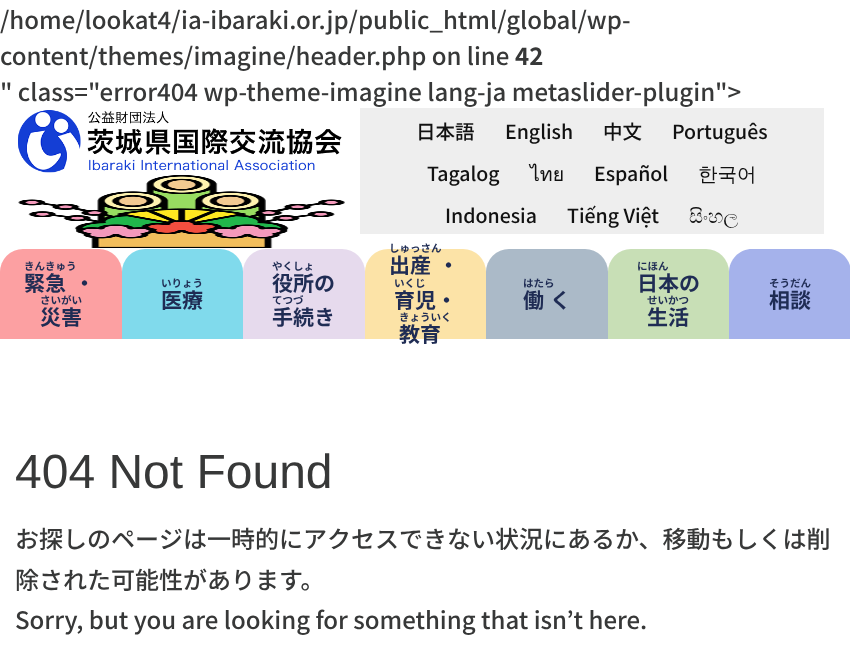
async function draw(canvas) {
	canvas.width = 850;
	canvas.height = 659;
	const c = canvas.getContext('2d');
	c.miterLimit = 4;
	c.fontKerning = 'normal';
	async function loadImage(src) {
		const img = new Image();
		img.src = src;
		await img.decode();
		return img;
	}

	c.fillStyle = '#fff';
	c.fillRect(0, 0, 850, 659);
	c.font = '500 24px Noto Sans JP';
	c.fillStyle = '#373838';
	c.fillText('/home/lookat4/ia-ibaraki.or.jp/public_html/global/wp-', 0, 29);
	c.fillText('content/themes/imagine/header.php on line', 0, 65);
	c.font = 'bold 24px Noto Sans JP';
	c.fillText('42', 515, 65);
	c.font = '500 24px Noto Sans JP';
	c.fillText('" class="error404 wp-theme-imagine lang-ja metaslider-plugin">', 0, 101);
	c.drawImage(await loadImage('img1.png'), 18, 110, 324, 63);
	c.drawImage(await loadImage('img2.png'), 18, 175, 327, 73);
	c.fillStyle = '#eee';
	c.fillRect(360, 108, 464, 126);
	c.font = '500 19.5px Noto Sans JP';
	c.fillStyle = '#111';
	for (const [text, x, y] of [
		['日本語', 416, 139],
		['English', 505, 139],
		['中文', 603, 139],
		['Português', 672, 139],
		['Tagalog', 427, 181],
	]) {
		c.fillText(text, x, y);
	}
	c.font = '19.5px Loma';
	c.fillText('ไทย', 530, 181);
	c.font = '500 19.5px Noto Sans JP';
	c.fillText('Español', 594, 181);
	c.font = '500 19.5px WenQuanYi Zen Hei';
	c.fillText('한국어', 698, 181);
	c.font = '500 19.5px Noto Sans JP';
	c.fillText('Indonesia', 445, 223);
	c.fillText('Tiếng Việt', 567, 223);
	c.font = '19.5px FreeSerif';
	c.fillText('සිංහල', 689, 223);
	c.fillStyle = '#fca0a2';
	c.beginPath();
	c.roundRect(0, 249, 122, 90, [23, 23, 0, 0]);
	c.fill();
	c.font = 'bold 10.5px Noto Sans JP';
	c.fillStyle = '#1f2c54';
	c.fillText('きんきゅう', 24, 270);
	c.font = 'bold 21px Noto Sans JP';
	c.fillText('緊急', 24, 291);
	c.fillText('・', 74, 291);
	c.font = 'bold 10.5px Noto Sans JP';
	c.fillText('さいがい', 40, 304);
	c.font = 'bold 21px Noto Sans JP';
	c.fillText('災害', 40, 325);
	c.fillStyle = '#80daec';
	c.beginPath();
	c.roundRect(122, 249, 121, 90, [23, 23, 0, 0]);
	c.fill();
	c.font = 'bold 10.5px Noto Sans JP';
	c.fillStyle = '#1f2c54';
	c.fillText('いりょう', 161, 287);
	c.font = 'bold 21px Noto Sans JP';
	c.fillText('医療', 161, 308);
	c.fillStyle = '#e6daed';
	c.beginPath();
	c.roundRect(243, 249, 122, 90, [23, 23, 0, 0]);
	c.fill();
	c.font = 'bold 10.5px Noto Sans JP';
	c.fillStyle = '#1f2c54';
	c.fillText('やくしょ', 272, 270);
	c.font = 'bold 21px Noto Sans JP';
	c.fillText('役所の', 272, 291);
	c.font = 'bold 10.5px Noto Sans JP';
	c.fillText('てつづ', 272, 304);
	c.font = 'bold 21px Noto Sans JP';
	c.fillText('手続き', 272, 325);
	c.fillStyle = '#fce3a7';
	c.beginPath();
	c.roundRect(365, 249, 121, 90, [23, 23, 0, 0]);
	c.fill();
	c.font = 'bold 10.5px Noto Sans JP';
	c.fillStyle = '#1f2c54';
	c.fillText('しゅっさん', 389, 252);
	c.font = 'bold 21px Noto Sans JP';
	c.fillText('出産', 389, 273);
	c.fillText('・', 438, 273);
	c.font = 'bold 10.5px Noto Sans JP';
	c.fillText('いくじ', 394, 287);
	c.font = 'bold 21px Noto Sans JP';
	c.fillText('育児・', 394, 308);
	c.font = 'bold 10.5px Noto Sans JP';
	c.fillText('きょういく', 399, 321);
	c.font = 'bold 21px Noto Sans JP';
	c.fillText('教育', 399, 342);
	c.fillStyle = '#abbac8';
	c.beginPath();
	c.roundRect(486, 249, 122, 90, [23, 23, 0, 0]);
	c.fill();
	c.font = 'bold 10.5px Noto Sans JP';
	c.fillStyle = '#1f2c54';
	c.fillText('はたら', 523, 287);
	c.font = 'bold 21px Noto Sans JP';
	c.fillText('働', 523, 308);
	c.fillText('く', 550, 308);
	c.fillStyle = '#c8dfb6';
	c.beginPath();
	c.roundRect(608, 249, 121, 90, [23, 23, 0, 0]);
	c.fill();
	c.font = 'bold 10.5px Noto Sans JP';
	c.fillStyle = '#1f2c54';
	c.fillText('にほん', 637, 270);
	c.font = 'bold 21px Noto Sans JP';
	c.fillText('日本の', 637, 291);
	c.font = 'bold 10.5px Noto Sans JP';
	c.fillText('せいかつ', 647, 304);
	c.font = 'bold 21px Noto Sans JP';
	c.fillText('生活', 647, 325);
	c.fillStyle = '#a5b2eb';
	c.beginPath();
	c.moveTo(752, 249);
	c.lineTo(828, 249);
	c.bezierCurveTo(840.5, 249, 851, 259.5, 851, 272);
	c.lineTo(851, 339);
	c.lineTo(729, 339);
	c.lineTo(729, 272);
	c.bezierCurveTo(729, 259.5, 739.5, 249, 752, 249);
	c.closePath();
	c.fill();
	c.font = 'bold 10.5px Noto Sans JP';
	c.fillStyle = '#1f2c54';
	c.fillText('そうだん', 769, 287);
	c.font = 'bold 21px Noto Sans JP';
	c.fillText('相談', 769, 308);
	c.font = '48px Liberation Sans';
	c.fillStyle = '#373838';
	c.fillText('404 Not Found', 15, 488);
	c.font = '500 24px Noto Sans JP';
	for (const [text, x, y] of [
		['お探しのページは一時的にアクセスできない状況にあるか、移動もしくは削', 15, 548],
		['除された可能性があります。', 15, 589],
		['Sorry, but you are looking for something that isn’t here.', 15, 629],
	]) {
		c.fillText(text, x, y);
	}
}

draw(document.querySelector('canvas'));
